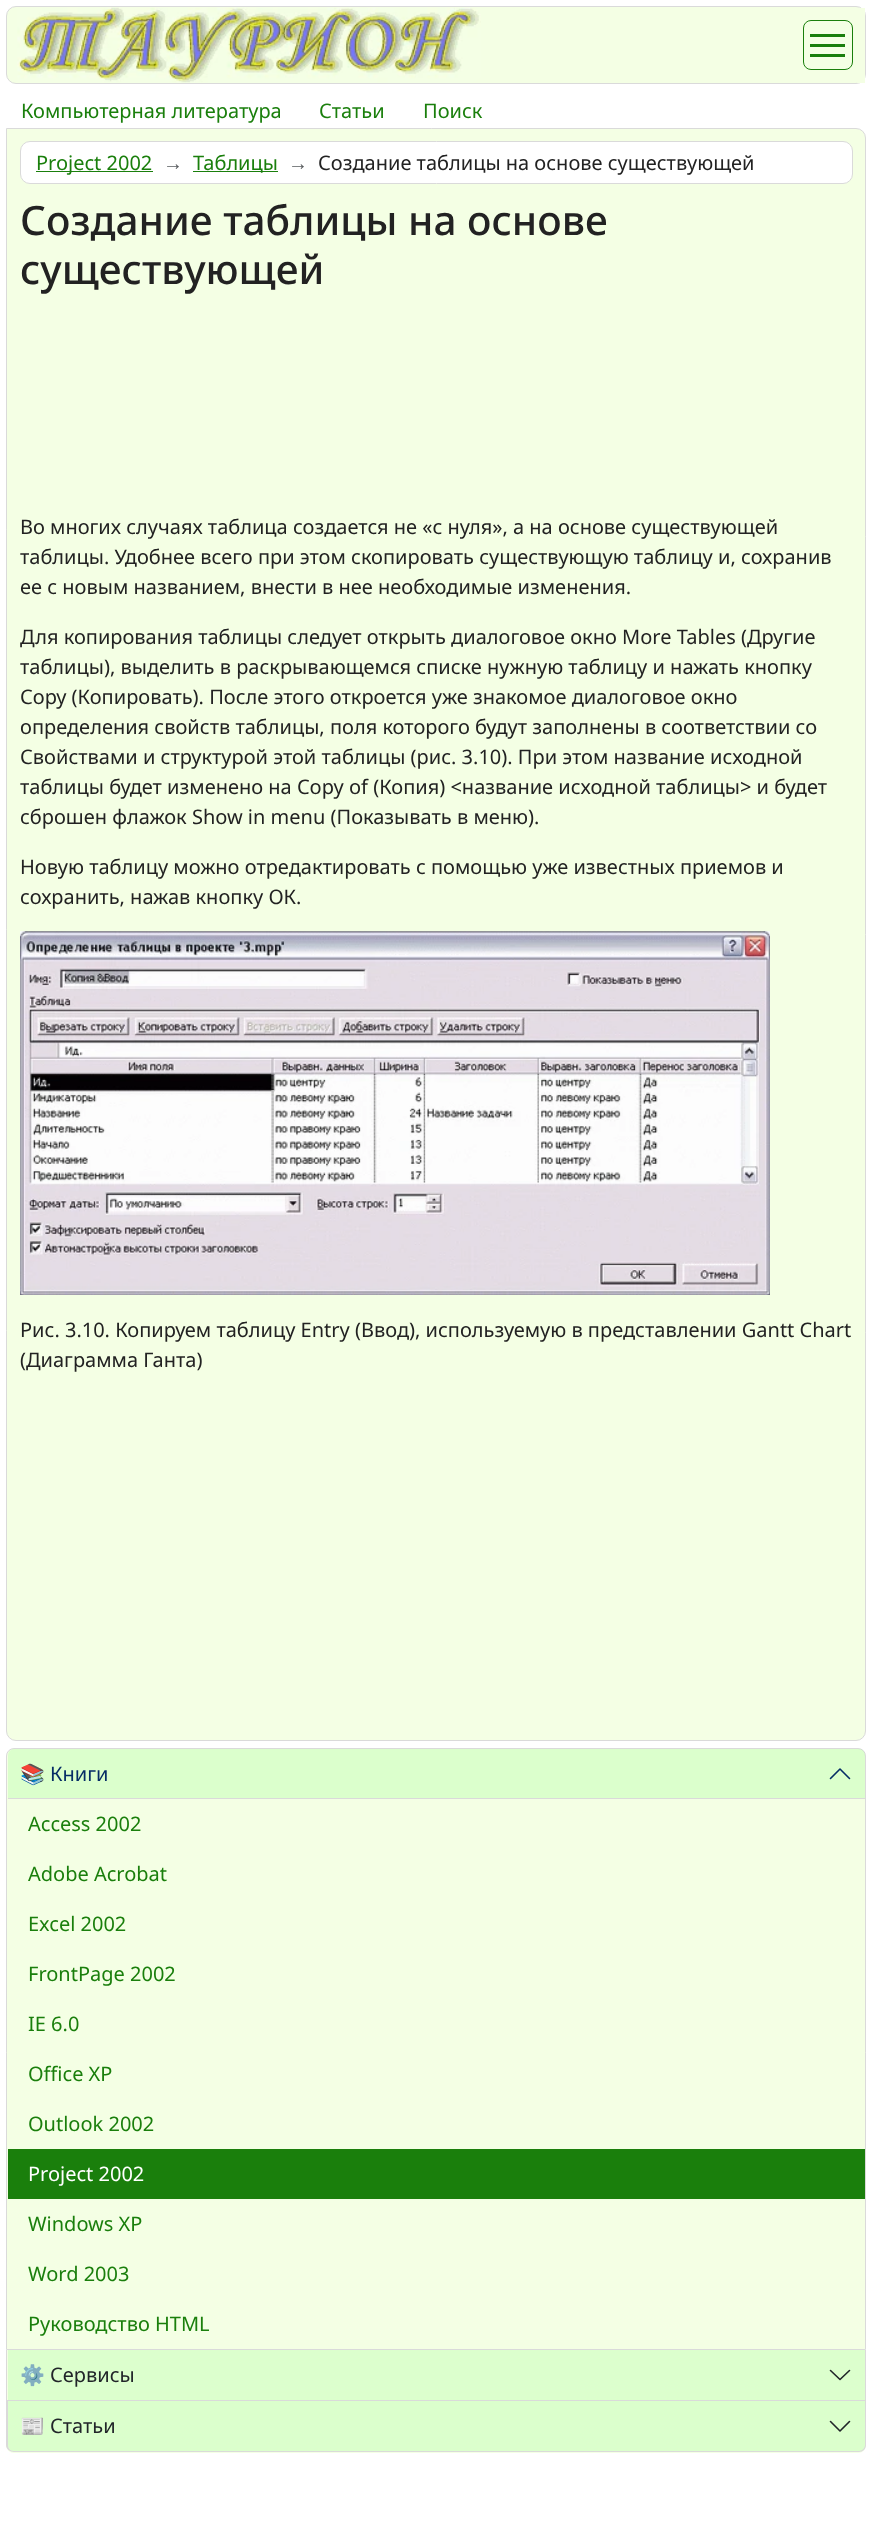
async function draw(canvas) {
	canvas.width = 872;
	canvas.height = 2545;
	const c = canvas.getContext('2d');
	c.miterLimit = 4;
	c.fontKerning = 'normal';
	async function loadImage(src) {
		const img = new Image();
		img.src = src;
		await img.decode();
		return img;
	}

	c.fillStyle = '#fff';
	c.fillRect(0, 0, 872, 2545);
	c.fillStyle = '#f4ffe4';
	c.beginPath();
	c.roundRect(6.5, 6.5, 859, 77, 9.5);
	c.fill();
	c.strokeStyle = '#dadada';
	c.stroke();
	c.drawImage(await loadImage('img1.png'), 17, 7, 464, 76);
	c.fillRect(857, 8, 8, 75);
	c.beginPath();
	c.roundRect(803.5, 20.5, 49, 49, 7.5);
	c.strokeStyle = '#1a7f0c';
	c.stroke();
	for (const [x, y, w, h, color] of [
		[810, 34, 35, 3, '#1a7f0c'],
		[810, 44, 35, 3, '#1a7f0c'],
		[810, 54, 35, 3, '#1a7f0c'],
	]) {
		c.fillStyle = color;
		c.fillRect(x, y, w, h);
	}
	c.font = '20px Noto Sans';
	for (const [text, x, y] of [
		['Компьютерная литература', 21, 118],
		['Статьи', 319, 118],
		['Поиск', 423, 118],
	]) {
		c.fillText(text, x, y);
	}
	c.fillStyle = '#f4ffe4';
	c.beginPath();
	c.roundRect(6.5, 128.5, 859, 1612, [0, 9.5, 9.5, 9.5]);
	c.fill();
	c.strokeStyle = '#dadada';
	c.stroke();
	c.fillStyle = '#fff';
	c.beginPath();
	c.roundRect(20.5, 141.5, 832, 42, 9.5);
	c.fill();
	c.stroke();
	c.fillStyle = '#1a7f0c';
	c.fillRect(36, 171, 117, 1);
	c.fillText('Project 2002', 36, 170);
	c.font = '20px Liberation Sans';
	c.fillStyle = '#595c5f';
	c.fillText('→', 163, 170);
	c.fillStyle = '#1a7f0c';
	c.fillRect(193, 171, 85, 1);
	c.font = '20px Noto Sans';
	c.fillText('Таблицы', 193, 170);
	c.font = '20px Liberation Sans';
	c.fillStyle = '#595c5f';
	c.fillText('→', 288, 170);
	c.font = '20px Noto Sans';
	c.fillStyle = '#222';
	c.fillText('Создание таблицы на основе существующей', 318, 170);
	c.font = '500 40.6px Noto Sans';
	c.fillText('Создание таблицы на основе', 20, 235);
	c.fillText('существующей', 20, 284);
	c.font = '20px Noto Sans';
	for (const [text, x, y] of [
		['Во многих случаях таблица создается не «с нуля», а на основе существующей', 20, 534],
		['таблицы. Удобнее всего при этом скопировать существующую таблицу и, сохранив', 20, 564],
		['ее с новым названием, внести в нее необходимые изменения.', 20, 594],
		['Для копирования таблицы следует открыть диалоговое окно More Tables (Другие', 20, 644],
		['таблицы), выделить в раскрывающемся списке нужную таблицу и нажать кнопку', 20, 674],
		['Сору (Копировать). После этого откроется уже знакомое диалоговое окно', 20, 704],
		['определения свойств таблицы, поля которого будут заполнены в соответствии со', 20, 734],
		['Свойствами и структурой этой таблицы (рис. 3.10). При этом название исходной', 20, 764],
		['таблицы будет изменено на Copy of (Копия) <название исходной таблицы> и будет', 20, 794],
		['сброшен флажок Show in menu (Показывать в меню).', 20, 824],
		['Новую таблицу можно отредактировать с помощью уже известных приемов и', 20, 874],
		['сохранить, нажав кнопку ОК.', 20, 904],
	]) {
		c.fillText(text, x, y);
	}
	c.drawImage(await loadImage('img2.png'), 20, 931, 750, 364);
	c.fillText('Рис. 3.10. Копируем таблицу Entry (Ввод), используемую в представлении Gantt Chart', 20, 1337);
	c.fillText('(Диаграмма Ганта)', 20, 1367);
	c.fillStyle = '#f4ffe4';
	c.beginPath();
	c.roundRect(6.5, 1748.5, 859, 601, [7.5, 7.5, 0, 0]);
	c.fill();
	c.stroke();
	c.fillStyle = '#00ff001a';
	c.beginPath();
	c.roundRect(8, 1749, 857, 50, [6, 6, 0, 0]);
	c.fill();
	c.fillStyle = '#dadada';
	c.fillRect(8, 1798, 857, 1);
	c.font = '20px Noto Color Emoji';
	c.fillStyle = '#052c65';
	c.fillText('📚', 20, 1781);
	c.font = '20px Noto Sans';
	c.fillText('Книги', 50, 1781);
	c.beginPath();
	c.moveTo(849.5, 1778.5);
	c.lineTo(840, 1769);
	c.lineTo(830.5, 1778.5);
	c.strokeStyle = '#052c65';
	c.lineWidth = 1.6;
	c.lineCap = 'round';
	c.lineJoin = 'round';
	c.stroke();
	c.fillStyle = '#1a7f0c';
	for (const [text, x, y] of [
		['Access 2002', 28, 1831],
		['Adobe Acrobat', 28, 1881],
		['Excel 2002', 28, 1931],
		['FrontPage 2002', 28, 1981],
		['IE 6.0', 28, 2031],
		['Office XP', 28, 2081],
		['Outlook 2002', 28, 2131],
	]) {
		c.fillText(text, x, y);
	}
	c.fillRect(8, 2149, 857, 50);
	c.fillStyle = '#fff';
	c.fillText('Project 2002', 28, 2181);
	c.fillStyle = '#1a7f0c';
	for (const [text, x, y] of [
		['Windows XP', 28, 2231],
		['Word 2003', 28, 2281],
		['Руководство HTML', 28, 2331],
	]) {
		c.fillText(text, x, y);
	}
	for (const [x, y, w, h, color] of [
		[7, 2350, 1, 50, '#f4ffe4'],
		[865, 2350, 1, 51, '#dadada'],
		[6, 2400, 860, 1, '#dadada'],
		[6, 2350, 1, 51, '#dadada'],
		[8, 2350, 857, 50, '#dcffcd'],
	]) {
		c.fillStyle = color;
		c.fillRect(x, y, w, h);
	}
	c.font = '20px Noto Color Emoji';
	c.fillStyle = '#212529';
	c.fillText('⚙', 20, 2382);
	c.font = '20px Noto Sans';
	c.fillText('Сервисы', 50, 2382);
	c.beginPath();
	c.moveTo(830.5, 2370.5);
	c.lineTo(840, 2379.5);
	c.lineTo(849.5, 2370.5);
	c.strokeStyle = '#212529';
	c.stroke();
	c.fillStyle = '#f4ffe4';
	c.beginPath();
	c.roundRect(6, 2401, 860, 52, [0, 0, 8, 8]);
	c.fill();
	c.fillStyle = '#dadada';
	c.beginPath();
	c.moveTo(6, 2401);
	c.lineTo(866, 2401);
	c.lineTo(866, 2445);
	c.bezierCurveTo(866, 2449, 863, 2452, 859, 2452);
	c.lineTo(14, 2452);
	c.bezierCurveTo(10, 2452, 6, 2449, 6, 2445);
	c.closePath();
	c.moveTo(8, 2401);
	c.lineTo(865, 2401);
	c.lineTo(865, 2445);
	c.bezierCurveTo(865, 2448, 862, 2451, 859, 2451);
	c.lineTo(14, 2451);
	c.bezierCurveTo(10, 2451, 8, 2448, 8, 2445);
	c.closePath();
	c.fill('evenodd');
	c.fillStyle = '#00ff001a';
	c.beginPath();
	c.roundRect(8, 2401, 857, 50, [0, 0, 6, 6]);
	c.fill();
	c.font = '20px Noto Color Emoji';
	c.fillStyle = '#212529';
	c.fillText('📰', 20, 2433);
	c.font = '20px Noto Sans';
	c.fillText('Статьи', 50, 2433);
	c.beginPath();
	c.moveTo(830.5, 2421.5);
	c.lineTo(840, 2431);
	c.lineTo(849.5, 2421.5);
	c.stroke();
}

draw(document.querySelector('canvas'));
